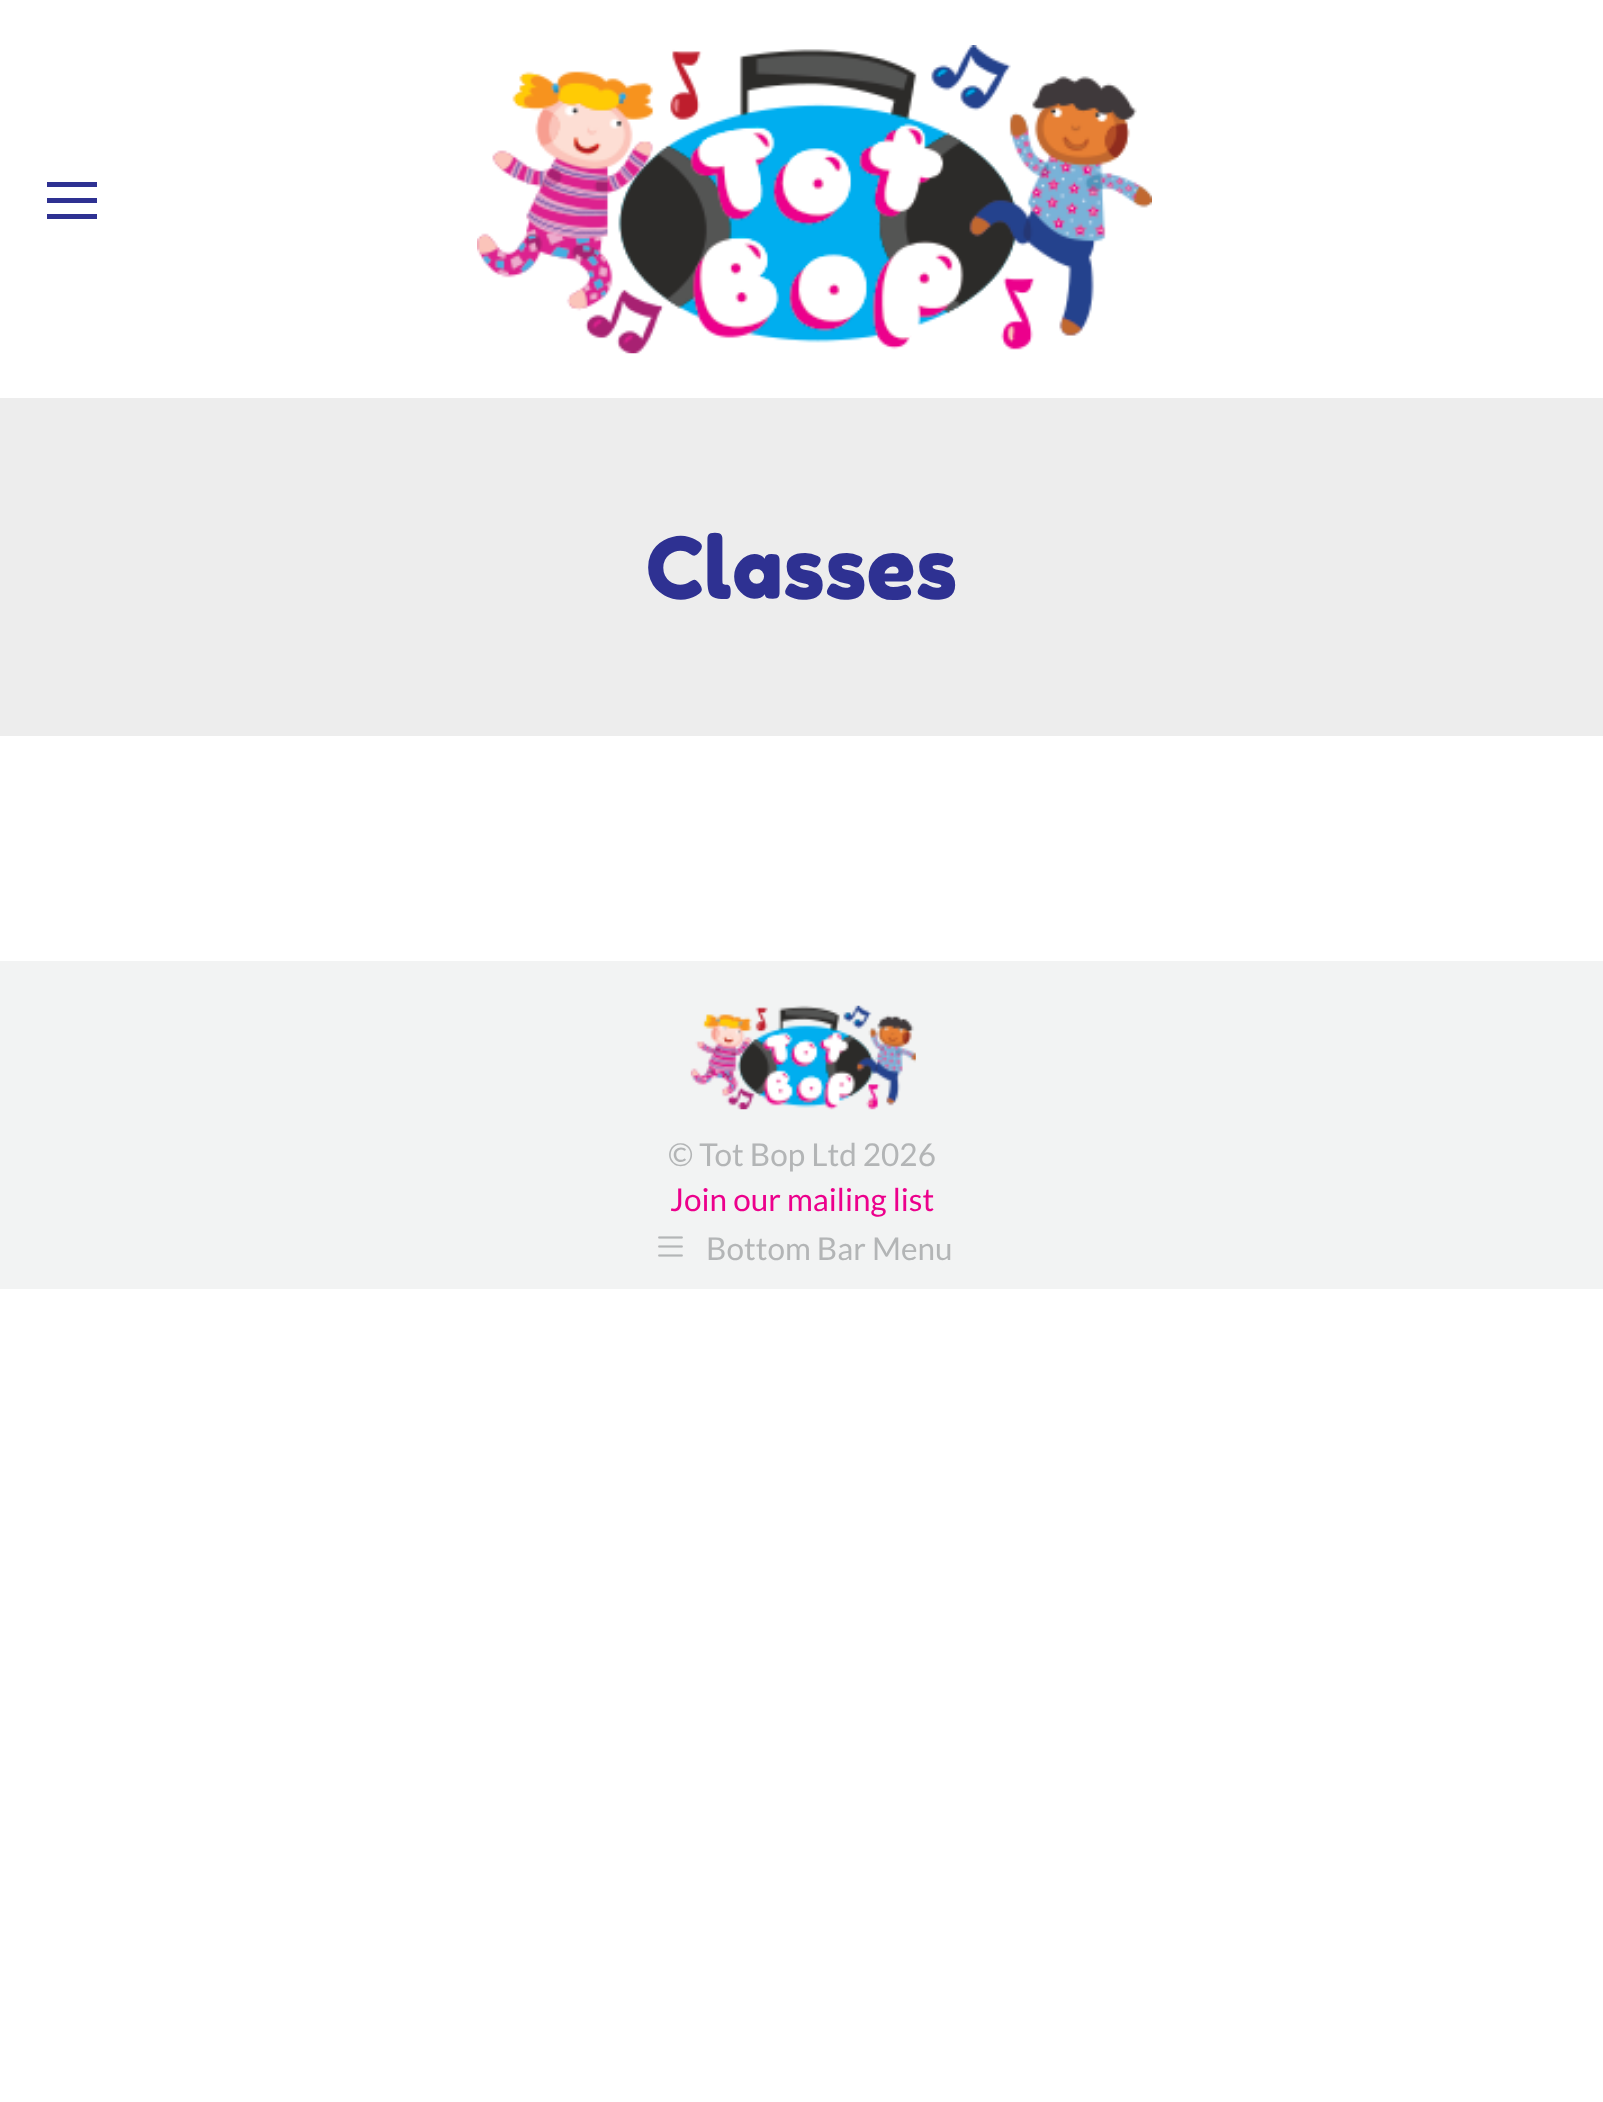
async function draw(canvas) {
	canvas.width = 1603;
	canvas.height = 2102;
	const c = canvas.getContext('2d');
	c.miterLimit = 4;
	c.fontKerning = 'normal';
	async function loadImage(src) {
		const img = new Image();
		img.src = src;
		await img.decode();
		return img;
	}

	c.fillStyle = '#fff';
	c.fillRect(0, 0, 1603, 2102);
	for (const [x, y, w, h, color] of [
		[47, 182, 50, 5, '#2e3192'],
		[47, 198, 50, 5, '#2e3192'],
		[47, 214, 50, 5, '#2e3192'],
	]) {
		c.fillStyle = color;
		c.fillRect(x, y, w, h);
	}
	c.drawImage(await loadImage('img1.png'), 477, 45, 675, 309);
	c.fillStyle = '#ededed';
	c.fillRect(0, 398, 1603, 338);
	c.font = '85.5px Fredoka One';
	c.fillStyle = '#2e3192';
	c.fillText('Classes', 646, 599);
	c.fillStyle = '#f2f3f3';
	c.fillRect(0, 961, 1603, 328);
	c.drawImage(await loadImage('img2.png'), 690, 1005, 226, 105);
	c.font = '31.5px Lato';
	c.fillStyle = '#b3b5b6';
	c.fillText('© Tot Bop Ltd 2026', 668, 1166);
	c.fillStyle = '#ec008c';
	c.fillText('Join our mailing list', 670, 1211);
	c.drawImage(await loadImage('img3.png'), 658, 1236, 25, 21);
	c.fillStyle = '#b3b5b6';
	c.fillText('Bottom Bar Menu', 706, 1260);
}

draw(document.querySelector('canvas'));
